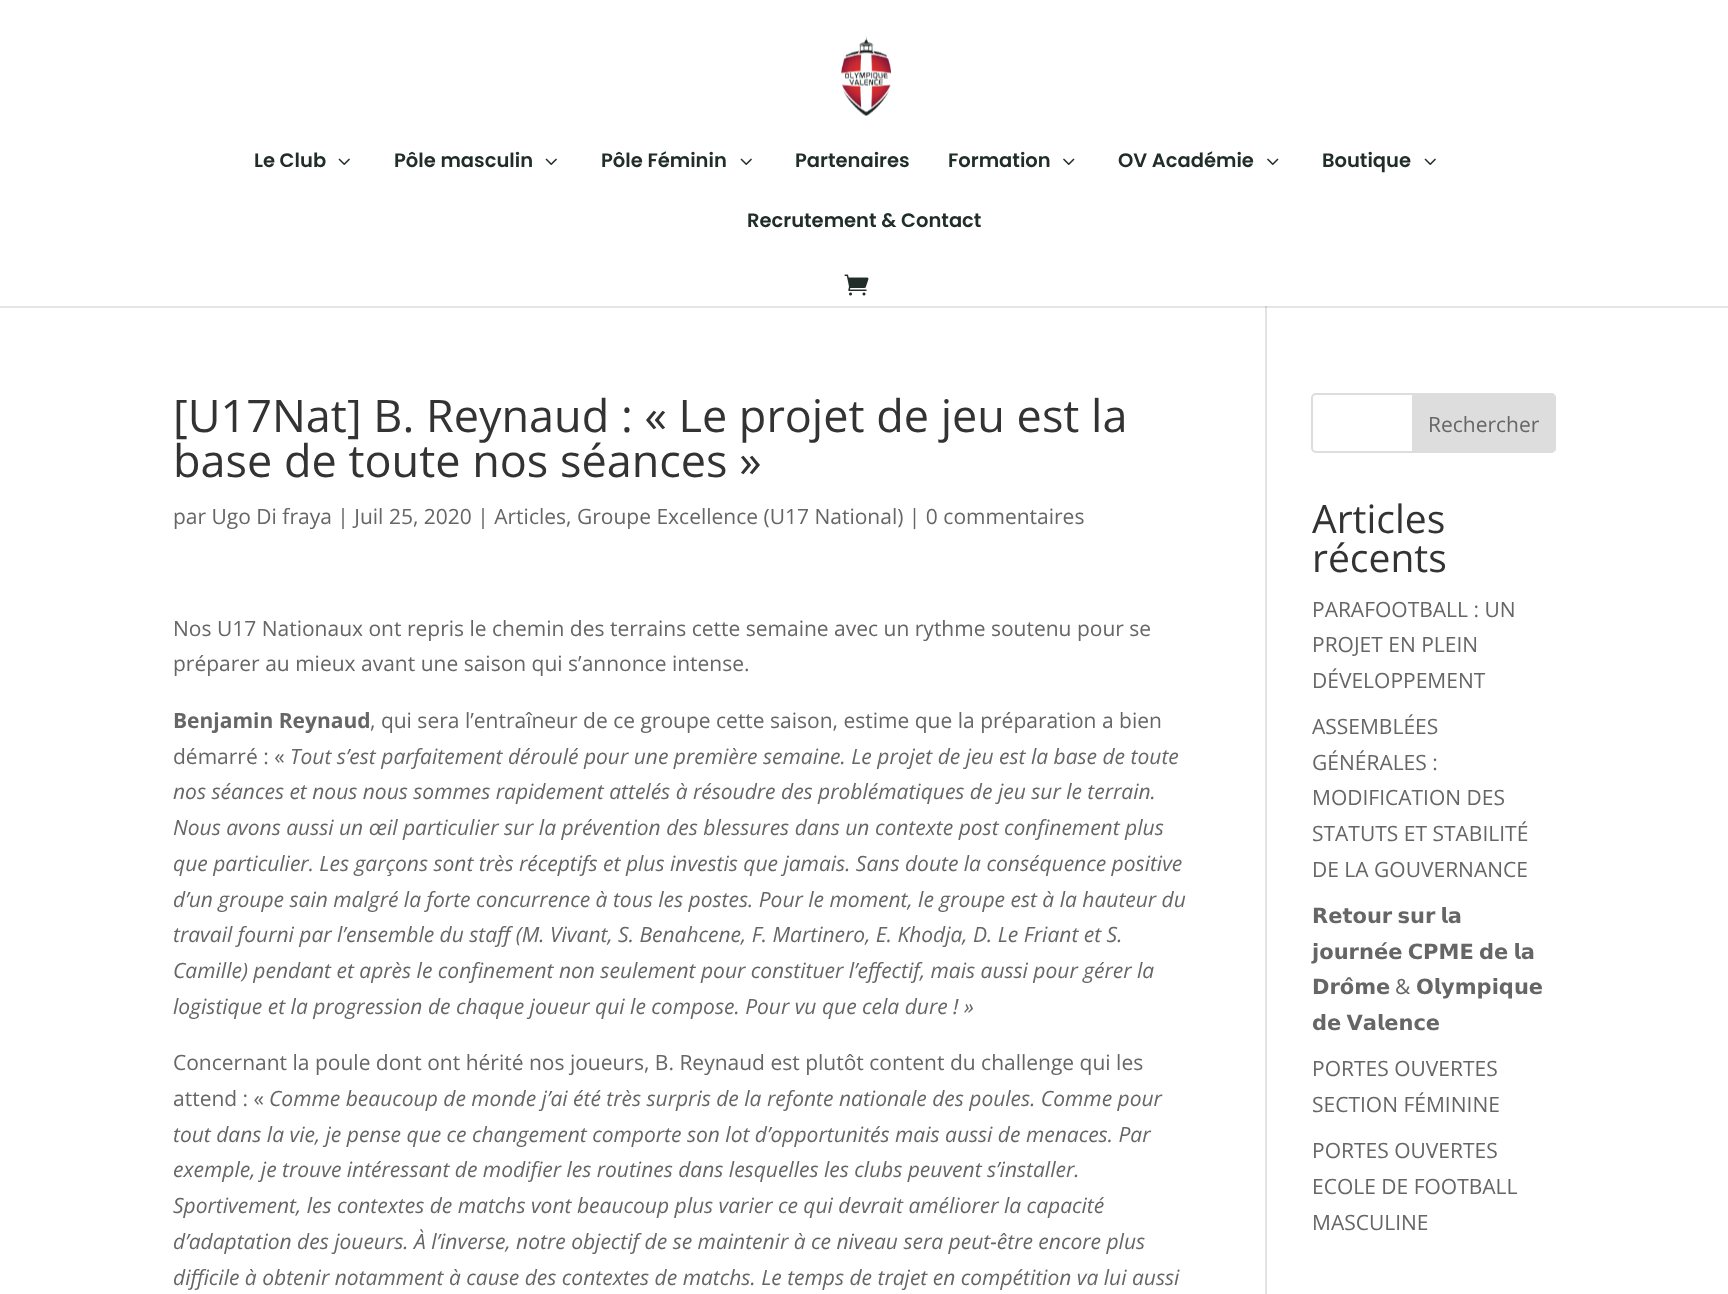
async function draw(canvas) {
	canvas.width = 1728;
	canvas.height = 1294;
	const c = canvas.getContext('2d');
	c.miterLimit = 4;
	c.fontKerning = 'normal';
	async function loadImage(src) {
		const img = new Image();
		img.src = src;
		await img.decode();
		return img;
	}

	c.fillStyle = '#fff';
	c.fillRect(0, 0, 1728, 1294);
	c.fillStyle = '#e6e6e6';
	c.fillRect(0, 306, 1728, 2);
	c.drawImage(await loadImage('img1.png'), 841, 36, 51, 80);
	c.font = '600 19.5px Poppins';
	c.fillStyle = '#202d28';
	c.fillText('Le Club', 254, 167);
	c.drawImage(await loadImage('img2.png'), 338, 158, 12, 7);
	c.fillText('Pôle masculin', 394, 167);
	c.drawImage(await loadImage('img2.png'), 545, 158, 12, 7);
	c.fillText('Pôle Féminin', 601, 167);
	c.drawImage(await loadImage('img2.png'), 740, 158, 12, 7);
	c.fillText('Partenaires', 795, 167);
	c.fillText('Formation', 948, 167);
	c.drawImage(await loadImage('img3.png'), 1063, 158, 12, 7);
	c.fillText('OV Académie', 1118, 167);
	c.drawImage(await loadImage('img3.png'), 1267, 158, 12, 7);
	c.fillText('Boutique', 1322, 167);
	c.drawImage(await loadImage('img2.png'), 1424, 158, 12, 7);
	c.fillText('Recrutement & Contact', 747, 227);
	c.drawImage(await loadImage('img4.png'), 844, 274, 25, 22);
	c.fillStyle = '#e2e2e2';
	c.fillRect(1265, 306, 2, 988);
	c.fillStyle = '#cbcbcb';
	c.fillRect(1265, 306, 2, 2);
	c.font = '45px Open Sans';
	c.fillStyle = '#333';
	c.fillText('[U17Nat] B. Reynaud : « Le projet de jeu est la', 173, 432);
	c.fillText('base de toute nos séances »', 173, 477);
	c.font = '21px Open Sans';
	c.fillStyle = '#666';
	for (const [text, x, y] of [
		['par Ugo Di fraya | Juil 25, 2020 | Articles, Groupe Excellence (U17 National) | 0 commentaires', 173, 524],
		['Nos U17 Nationaux ont repris le chemin des terrains cette semaine avec un rythme soutenu pour se', 173, 636],
		['préparer au mieux avant une saison qui s’annonce intense.', 173, 671],
	]) {
		c.fillText(text, x, y);
	}
	c.font = 'bold 21px Open Sans';
	c.fillText('Benjamin Reynaud', 173, 728);
	c.font = '21px Open Sans';
	c.fillText(', qui sera l’entraîneur de ce groupe cette saison, estime que la préparation a bien', 370, 728);
	c.fillText('démarré : «', 173, 764);
	c.font = 'italic 21px Open Sans';
	for (const [text, x, y] of [
		['Tout s’est parfaitement déroulé pour une première semaine. Le projet de jeu est la base de toute', 290, 764],
		['nos séances et nous nous sommes rapidement attelés à résoudre des problématiques de jeu sur le terrain.', 173, 799],
		['Nous avons aussi un œil particulier sur la prévention des blessures dans un contexte post confinement plus', 173, 835],
		['que particulier. Les garçons sont très réceptifs et plus investis que jamais. Sans doute la conséquence positive', 173, 871],
		['d’un groupe sain malgré la forte concurrence à tous les postes. Pour le moment, le groupe est à la hauteur du', 173, 907],
		['travail fourni par l’ensemble du staff (M. Vivant, S. Benahcene, F. Martinero, E. Khodja, D. Le Friant et S.', 173, 942],
		['Camille) pendant et après le confinement non seulement pour constituer l’effectif, mais aussi pour gérer la', 173, 978],
		['logistique et la progression de chaque joueur qui le compose. Pour vu que cela dure ! »', 173, 1014],
	]) {
		c.fillText(text, x, y);
	}
	c.font = '21px Open Sans';
	c.fillText('Concernant la poule dont ont hérité nos joueurs, B. Reynaud est plutôt content du challenge qui les', 173, 1070);
	c.fillText('attend : «', 173, 1106);
	c.font = 'italic 21px Open Sans';
	for (const [text, x, y] of [
		['Comme beaucoup de monde j’ai été très surpris de la refonte nationale des poules. Comme pour', 269, 1106],
		['tout dans la vie, je pense que ce changement comporte son lot d’opportunités mais aussi de menaces. Par', 173, 1142],
		['exemple, je trouve intéressant de modifier les routines dans lesquelles les clubs peuvent s’installer.', 173, 1177],
		['Sportivement, les contextes de matchs vont beaucoup plus varier ce qui devrait améliorer la capacité', 173, 1213],
		['d’adaptation des joueurs. À l’inverse, notre objectif de se maintenir à ce niveau sera peut-être encore plus', 173, 1249],
		['difficile à obtenir notamment à cause des contextes de matchs. Le temps de trajet en compétition va lui aussi', 173, 1285],
	]) {
		c.fillText(text, x, y);
	}
	c.beginPath();
	c.roundRect(1312, 394, 243, 58, 4);
	c.strokeStyle = '#ddd';
	c.lineWidth = 2;
	c.stroke();
	c.fillStyle = '#ddd';
	c.beginPath();
	c.roundRect(1413, 394, 142, 58, [0, 4, 4, 0]);
	c.fill();
	c.stroke();
	c.font = '21px Open Sans';
	c.fillStyle = '#666';
	c.fillText('Rechercher', 1428, 432);
	c.font = '39px Open Sans';
	c.fillStyle = '#333';
	c.fillText('Articles', 1312, 533);
	c.fillText('récents', 1312, 572);
	c.font = '21px Open Sans';
	c.fillStyle = '#666';
	for (const [text, x, y] of [
		['PARAFOOTBALL : UN', 1312, 617],
		['PROJET EN PLEIN', 1312, 652],
		['DÉVELOPPEMENT', 1312, 688],
		['ASSEMBLÉES', 1312, 734],
		['GÉNÉRALES :', 1312, 770],
		['MODIFICATION DES', 1312, 805],
		['STATUTS ET STABILITÉ', 1312, 841],
		['DE LA GOUVERNANCE', 1312, 877],
	]) {
		c.fillText(text, x, y);
	}
	c.wordSpacing = '-2px';
	c.font = 'bold 21px DejaVu Sans';
	c.fillText('𝗥𝗲𝘁𝗼𝘂𝗿 𝘀𝘂𝗿 𝗹𝗮', 1312, 923);
	c.fillText('𝗷𝗼𝘂𝗿𝗻𝗲́𝗲 𝗖𝗣𝗠𝗘 𝗱𝗲 𝗹𝗮', 1312, 959);
	c.wordSpacing = '0px';
	c.fillText('𝗗𝗿𝗼̂𝗺𝗲', 1312, 994);
	c.font = '21px Open Sans';
	c.fillText('&', 1395, 994);
	c.font = 'bold 21px DejaVu Sans';
	c.fillText('𝗢𝗹𝘆𝗺𝗽𝗶𝗾𝘂𝗲', 1416, 994);
	c.wordSpacing = '-2px';
	c.fillText('𝗱𝗲 𝗩𝗮𝗹𝗲𝗻𝗰𝗲', 1312, 1030);
	c.wordSpacing = '0px';
	c.font = '21px Open Sans';
	for (const [text, x, y] of [
		['PORTES OUVERTES', 1312, 1076],
		['SECTION FÉMININE', 1312, 1112],
		['PORTES OUVERTES', 1312, 1158],
		['ECOLE DE FOOTBALL', 1312, 1194],
		['MASCULINE', 1312, 1230],
	]) {
		c.fillText(text, x, y);
	}
}

draw(document.querySelector('canvas'));
